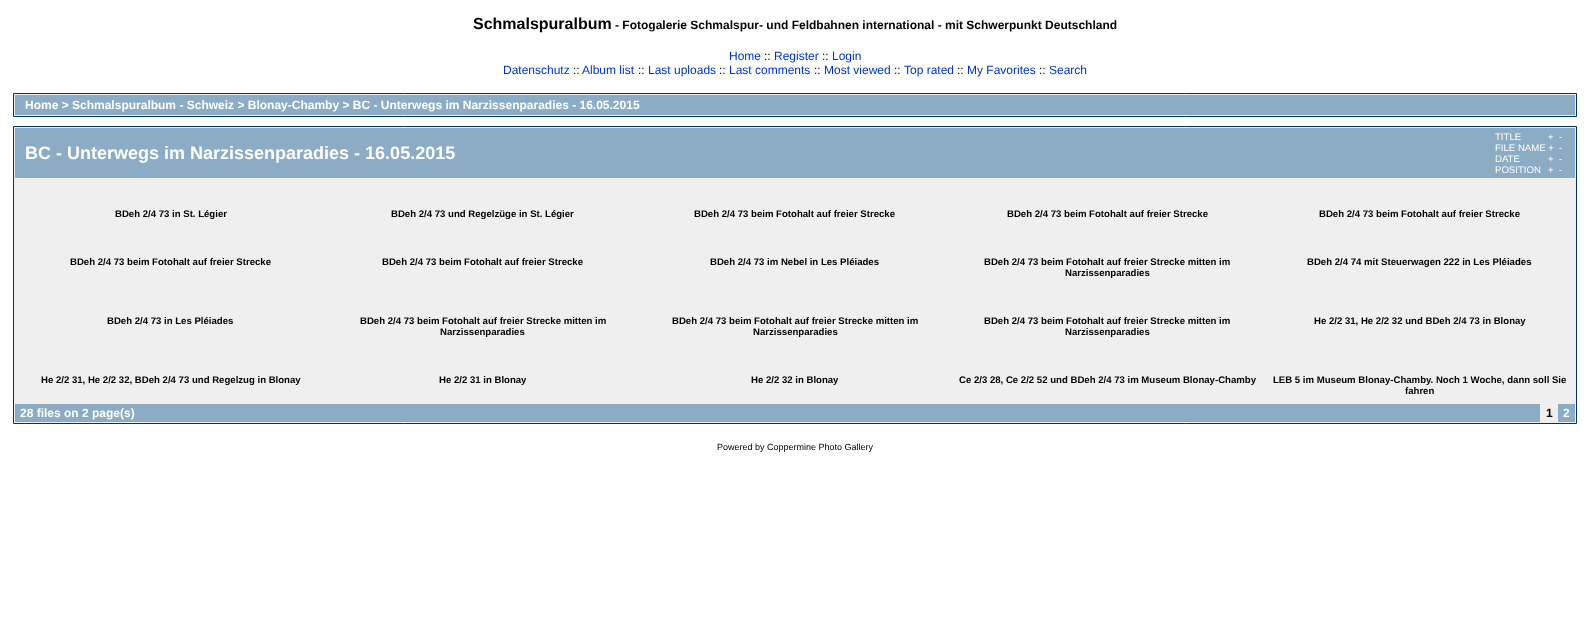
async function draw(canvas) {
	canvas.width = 1590;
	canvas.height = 643;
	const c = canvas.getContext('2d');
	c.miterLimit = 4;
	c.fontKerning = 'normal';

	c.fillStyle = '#fff';
	c.fillRect(0, 0, 1590, 643);
	c.font = 'bold 16px Liberation Sans';
	c.fillStyle = '#000';
	c.fillText('Schmalspuralbum', 473, 29);
	c.font = 'bold 12px Liberation Sans';
	c.fillText('- Fotogalerie Schmalspur- und Feldbahnen international - mit Schwerpunkt Deutschland', 615, 29);
	c.font = '12px Liberation Sans';
	c.fillStyle = '#03c';
	c.fillText('Home', 729, 60);
	c.fillStyle = '#000';
	c.fillText('::', 764, 60);
	c.fillStyle = '#03c';
	c.fillText('Register', 774, 60);
	c.fillStyle = '#000';
	c.fillText('::', 822, 60);
	c.fillStyle = '#03c';
	c.fillText('Login', 832, 60);
	c.fillText('Datenschutz', 503, 74);
	c.fillStyle = '#000';
	c.fillText('::', 573, 74);
	c.fillStyle = '#03c';
	c.fillText('Album list', 582, 74);
	c.fillStyle = '#000';
	c.fillText('::', 638, 74);
	c.fillStyle = '#03c';
	c.fillText('Last uploads', 648, 74);
	c.fillStyle = '#000';
	c.fillText('::', 719, 74);
	c.fillStyle = '#03c';
	c.fillText('Last comments', 729, 74);
	c.fillStyle = '#000';
	c.fillText('::', 814, 74);
	c.fillStyle = '#03c';
	c.fillText('Most viewed', 824, 74);
	c.fillStyle = '#000';
	c.fillText('::', 894, 74);
	c.fillStyle = '#03c';
	c.fillText('Top rated', 904, 74);
	c.fillStyle = '#000';
	c.fillText('::', 957, 74);
	c.fillStyle = '#03c';
	c.fillText('My Favorites', 967, 74);
	c.fillStyle = '#000';
	c.fillText('::', 1039, 74);
	c.fillStyle = '#03c';
	c.fillText('Search', 1049, 74);
	c.fillStyle = '#efefef';
	c.beginPath();
	c.rect(13.5, 93.5, 1563, 23);
	c.fill();
	c.strokeStyle = '#003466';
	c.stroke();
	c.fillStyle = '#8bacc4';
	c.fillRect(15, 95, 1560, 20);
	c.font = 'bold 12px Liberation Sans';
	c.fillStyle = '#fff';
	c.fillText('Home > Schmalspuralbum - Schweiz > Blonay-Chamby > BC - Unterwegs im Narzissenparadies - 16.05.2015', 25, 109);
	c.fillStyle = '#efefef';
	c.beginPath();
	c.rect(13.5, 126.5, 1563, 297);
	c.fill();
	c.stroke();
	c.fillStyle = '#8bacc4';
	c.fillRect(15, 128, 1560, 50);
	c.font = 'bold 18px Liberation Sans';
	c.fillStyle = '#fff';
	c.fillText('BC - Unterwegs im Narzissenparadies - 16.05.2015', 25, 159);
	c.font = '9.6px Liberation Sans';
	for (const [text, x, y] of [
		['TITLE', 1495, 140],
		['+', 1548, 140],
		['-', 1559, 140],
		['FILE NAME +', 1495, 151],
		['-', 1559, 151],
		['DATE', 1495, 162],
		['+', 1548, 162],
		['-', 1559, 162],
		['POSITION', 1495, 173],
		['+', 1548, 173],
		['-', 1559, 173],
	]) {
		c.fillText(text, x, y);
	}
	c.font = 'bold 9.6px Liberation Sans';
	c.fillStyle = '#000';
	for (const [text, x, y] of [
		['BDeh 2/4 73 in St. Légier', 115, 217],
		['BDeh 2/4 73 und Regelzüge in St. Légier', 391, 217],
		['BDeh 2/4 73 beim Fotohalt auf freier Strecke', 694, 217],
		['BDeh 2/4 73 beim Fotohalt auf freier Strecke', 1007, 217],
		['BDeh 2/4 73 beim Fotohalt auf freier Strecke', 1319, 217],
		['BDeh 2/4 73 beim Fotohalt auf freier Strecke', 70, 265],
		['BDeh 2/4 73 beim Fotohalt auf freier Strecke', 382, 265],
		['BDeh 2/4 73 im Nebel in Les Pléiades', 710, 265],
		['BDeh 2/4 73 beim Fotohalt auf freier Strecke mitten im', 984, 265],
		['Narzissenparadies', 1065, 276],
		['BDeh 2/4 74 mit Steuerwagen 222 in Les Pléiades', 1307, 265],
		['BDeh 2/4 73 in Les Pléiades', 107, 324],
		['BDeh 2/4 73 beim Fotohalt auf freier Strecke mitten im', 360, 324],
		['Narzissenparadies', 440, 335],
		['BDeh 2/4 73 beim Fotohalt auf freier Strecke mitten im', 672, 324],
		['Narzissenparadies', 753, 335],
		['BDeh 2/4 73 beim Fotohalt auf freier Strecke mitten im', 984, 324],
		['Narzissenparadies', 1065, 335],
		['He 2/2 31, He 2/2 32 und BDeh 2/4 73 in Blonay', 1314, 324],
		['He 2/2 31, He 2/2 32, BDeh 2/4 73 und Regelzug in Blonay', 41, 383],
		['He 2/2 31 in Blonay', 439, 383],
		['He 2/2 32 in Blonay', 751, 383],
		['Ce 2/3 28, Ce 2/2 52 und BDeh 2/4 73 im Museum Blonay-Chamby', 959, 383],
		['LEB 5 im Museum Blonay-Chamby. Noch 1 Woche, dann soll Sie', 1273, 383],
		['fahren', 1405, 394],
	]) {
		c.fillText(text, x, y);
	}
	c.fillStyle = '#8bacc4';
	c.fillRect(15, 404, 1525, 18);
	c.font = 'bold 12px Liberation Sans';
	c.fillStyle = '#fff';
	c.fillText('28 files on 2 page(s)', 20, 417);
	c.fillStyle = '#000';
	c.fillText('1', 1546, 417);
	c.fillStyle = '#8bacc4';
	c.fillRect(1558, 404, 17, 18);
	c.fillStyle = '#fff';
	c.fillText('2', 1563, 417);
	c.font = '9px Liberation Sans';
	c.fillStyle = '#000';
	c.fillText('Powered by Coppermine Photo Gallery', 717, 450);
}

draw(document.querySelector('canvas'));
